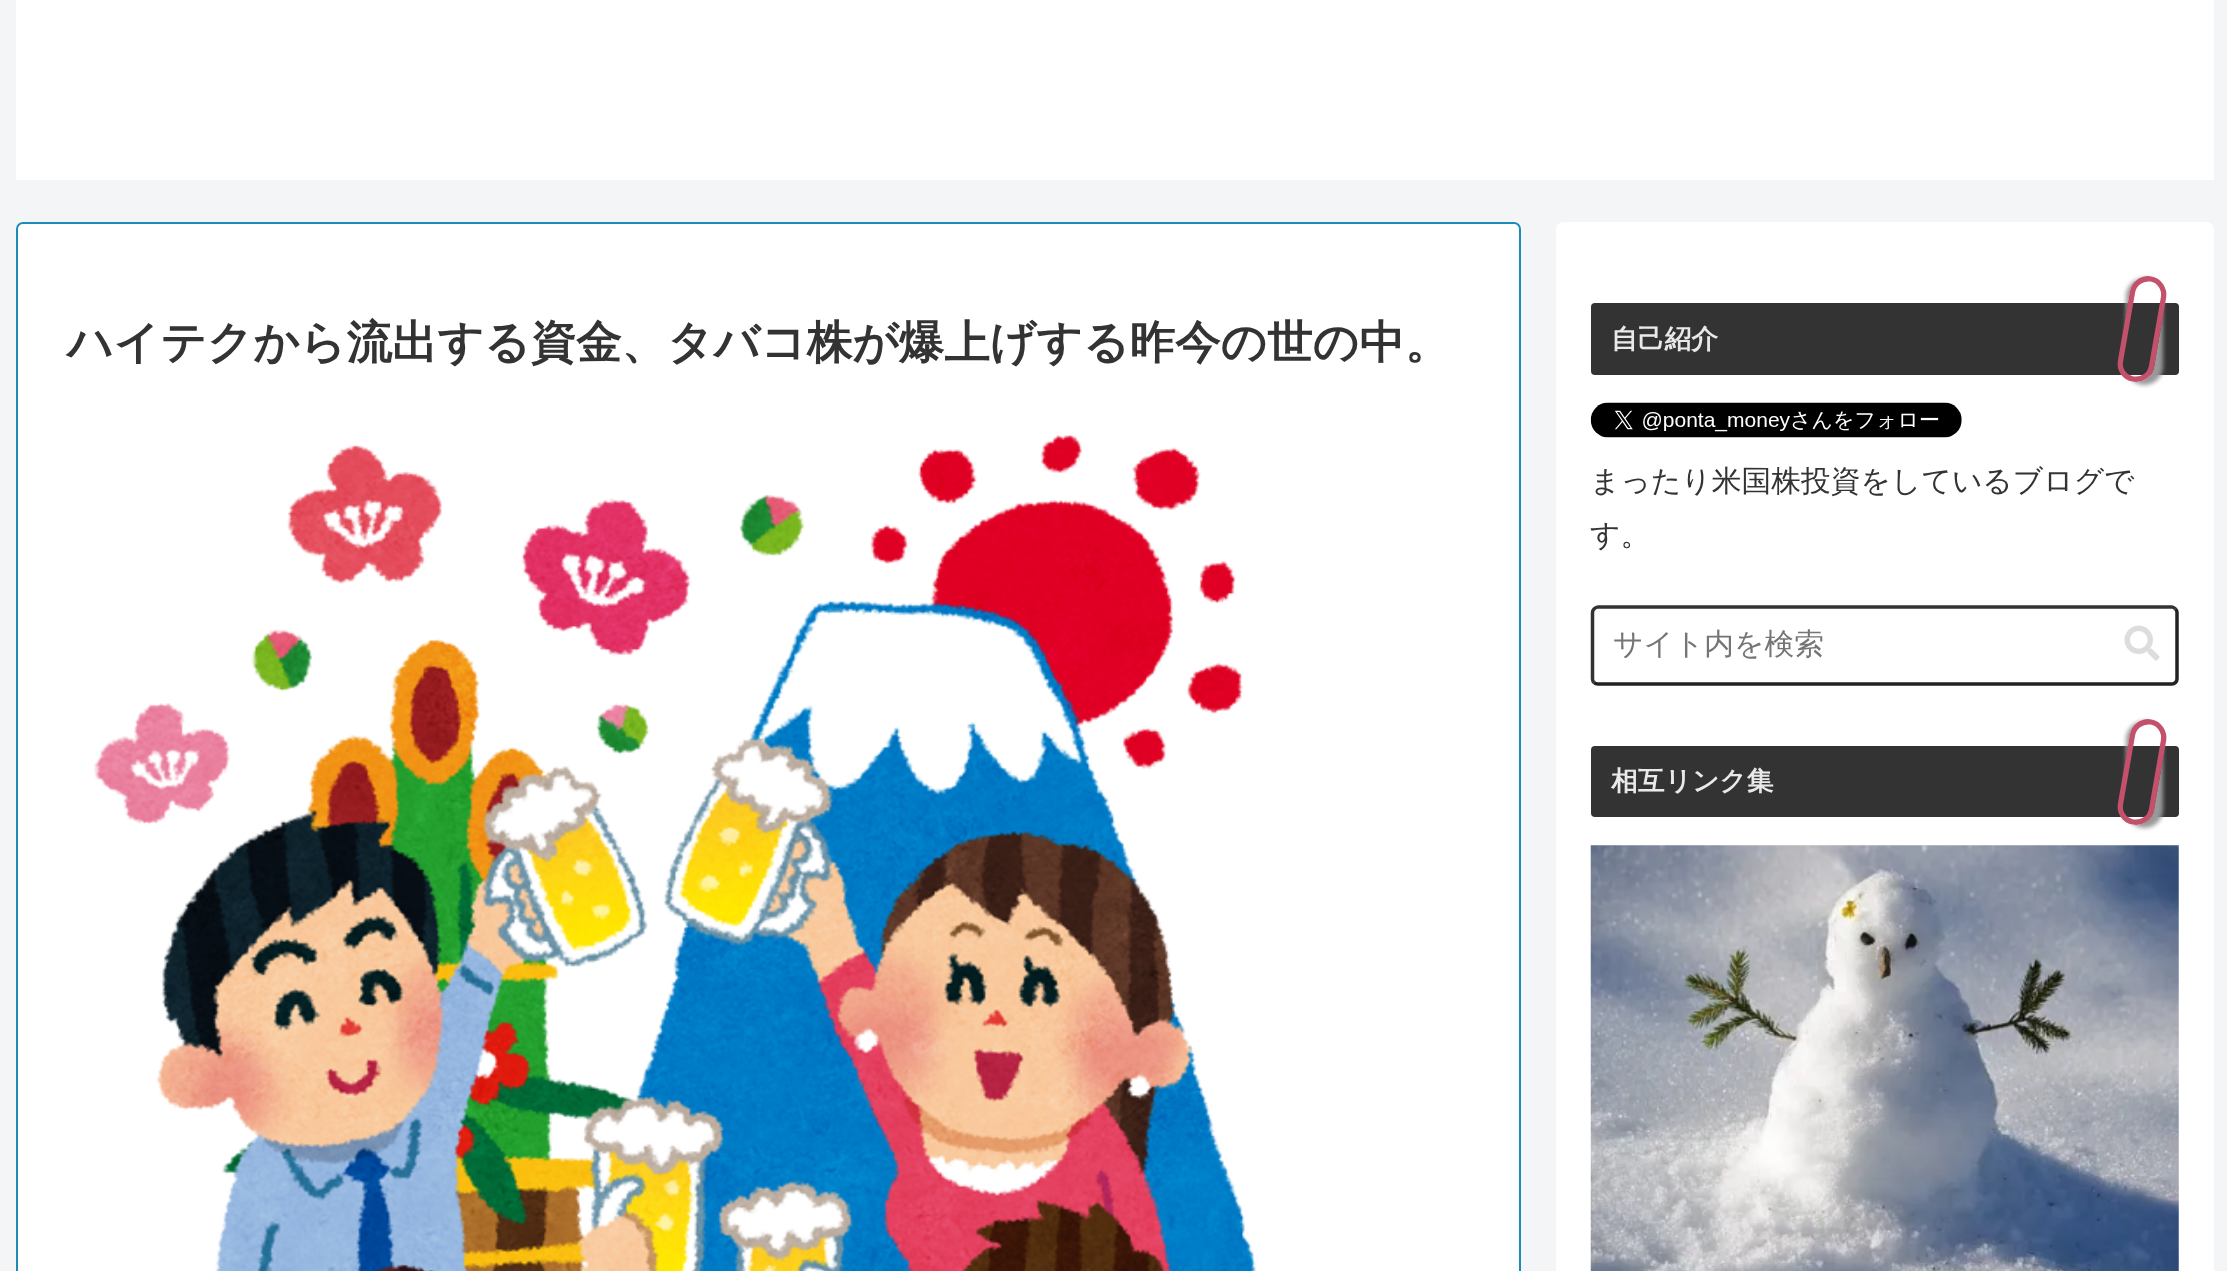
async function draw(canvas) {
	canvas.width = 2227;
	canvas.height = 1271;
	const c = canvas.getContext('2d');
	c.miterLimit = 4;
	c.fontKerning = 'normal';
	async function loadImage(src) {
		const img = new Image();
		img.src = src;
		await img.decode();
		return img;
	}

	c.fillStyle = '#f4f5f7';
	c.fillRect(0, 0, 2227, 1271);
	c.fillStyle = '#fff';
	c.fillRect(16, 0, 2198, 180);
	c.beginPath();
	c.roundRect(17, 223, 1503, 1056, 6);
	c.fill();
	c.strokeStyle = '#1d8bba';
	c.lineWidth = 2;
	c.stroke();
	c.font = 'bold 45.5px WenQuanYi Zen Hei';
	c.fillStyle = '#333';
	c.fillText('ハイテクから流出する資金、タバコ株が爆上げする昨今の世の中。', 67, 358);
	c.drawImage(await loadImage('img1.png'), 94, 435, 1163, 836);
	c.fillStyle = '#fff';
	c.beginPath();
	c.roundRect(1556, 222, 658, 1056, 7);
	c.fill();
	c.fillStyle = '#333';
	c.beginPath();
	c.roundRect(1591, 303, 588, 72, 4);
	c.fill();
	c.font = 'bold 26.75px WenQuanYi Zen Hei';
	c.fillStyle = '#e9e9e9';
	c.fillText('自己紹介', 1611, 348);
	c.save();
	c.beginPath();
	c.moveTo(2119, 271);
	c.lineTo(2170, 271);
	c.lineTo(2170, 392);
	c.lineTo(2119, 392);
	c.closePath();
	c.moveTo(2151.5, 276.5);
	c.bezierCurveTo(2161.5, 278.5, 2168, 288, 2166, 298);
	c.lineTo(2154, 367);
	c.bezierCurveTo(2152.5, 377, 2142.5, 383.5, 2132.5, 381.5);
	c.bezierCurveTo(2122.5, 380, 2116, 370.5, 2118, 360.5);
	c.lineTo(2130, 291.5);
	c.bezierCurveTo(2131.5, 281.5, 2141.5, 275, 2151.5, 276.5);
	c.closePath();
	c.clip('evenodd');
	c.fillStyle = '#999';
	c.filter = 'blur(2px)';
	c.beginPath();
	c.roundRect(2126, 278, 37, 107, 18.5);
	c.fill();
	c.filter = 'none';
	c.restore();
	c.beginPath();
	c.moveTo(2151, 279);
	c.bezierCurveTo(2159.5, 280.5, 2165, 289, 2163.5, 297.5);
	c.lineTo(2151.5, 366.5);
	c.bezierCurveTo(2150, 375, 2142, 380.5, 2133, 379);
	c.bezierCurveTo(2124.5, 377.5, 2119, 369.5, 2120.5, 361);
	c.lineTo(2132.5, 292);
	c.bezierCurveTo(2134, 283.5, 2142, 277.5, 2151, 279);
	c.closePath();
	c.strokeStyle = '#c3516b';
	c.lineWidth = 5.3;
	c.stroke();
	c.drawImage(await loadImage('img2.png'), 1590, 402, 372, 36);
	c.font = '500 29.75px WenQuanYi Zen Hei';
	c.fillStyle = '#333';
	c.fillText('まったり米国株投資をしているブログで', 1590, 491);
	c.fillText('す。', 1590, 545);
	c.beginPath();
	c.moveTo(2175.5, 609);
	c.bezierCurveTo(2176.5, 610, 2177, 611, 2177, 612.5);
	c.lineTo(2177, 679);
	c.bezierCurveTo(2177, 680.5, 2176.5, 681.5, 2175.5, 682.5);
	c.bezierCurveTo(2174.5, 683.5, 2173, 684, 2172, 684);
	c.lineTo(1598, 684);
	c.bezierCurveTo(1596.5, 684, 1595, 683.5, 1594, 682.5);
	c.strokeStyle = '#222';
	c.lineWidth = 3.5;
	c.stroke();
	c.beginPath();
	c.moveTo(1594, 682.5);
	c.bezierCurveTo(1593, 681.5, 1592.5, 680.5, 1592.5, 679);
	c.lineTo(1592.5, 612.5);
	c.bezierCurveTo(1592.5, 611, 1593, 610, 1594, 609);
	c.bezierCurveTo(1595, 608, 1596.5, 607, 1598, 607);
	c.lineTo(2172, 607);
	c.bezierCurveTo(2173, 607, 2174.5, 608, 2175.5, 609);
	c.strokeStyle = '#333';
	c.stroke();
	c.fillStyle = '#757575';
	c.fillText('サイト内を検索', 1613, 654);
	c.drawImage(await loadImage('img3.png'), 2124, 625, 36, 36);
	c.fillStyle = '#333';
	c.beginPath();
	c.roundRect(1591, 746, 588, 71, 4);
	c.fill();
	c.font = 'bold 26.75px WenQuanYi Zen Hei';
	c.fillStyle = '#e9e9e9';
	c.fillText('相互リンク集', 1611, 790);
	c.save();
	c.beginPath();
	c.moveTo(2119, 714);
	c.lineTo(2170, 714);
	c.lineTo(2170, 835);
	c.lineTo(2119, 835);
	c.closePath();
	c.moveTo(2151.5, 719.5);
	c.bezierCurveTo(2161.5, 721.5, 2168, 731, 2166, 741);
	c.lineTo(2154, 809.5);
	c.bezierCurveTo(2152.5, 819.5, 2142.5, 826.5, 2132.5, 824.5);
	c.bezierCurveTo(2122.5, 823, 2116, 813.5, 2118, 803.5);
	c.lineTo(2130, 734.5);
	c.bezierCurveTo(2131.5, 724.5, 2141.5, 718, 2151.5, 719.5);
	c.closePath();
	c.clip('evenodd');
	c.fillStyle = '#999';
	c.filter = 'blur(2px)';
	c.beginPath();
	c.roundRect(2126, 721, 37, 107, 18.5);
	c.fill();
	c.filter = 'none';
	c.restore();
	c.beginPath();
	c.moveTo(2151, 722);
	c.bezierCurveTo(2159.5, 723.5, 2165, 732, 2163.5, 740.5);
	c.lineTo(2151.5, 809.5);
	c.bezierCurveTo(2150, 818, 2142, 823.5, 2133, 822);
	c.bezierCurveTo(2124.5, 820.5, 2119, 812.5, 2120.5, 804);
	c.lineTo(2132.5, 735);
	c.bezierCurveTo(2134, 726.5, 2142, 720.5, 2151, 722);
	c.closePath();
	c.strokeStyle = '#c3516b';
	c.lineWidth = 5.3;
	c.stroke();
	c.drawImage(await loadImage('img4.png'), 1590, 845, 589, 426);
}

draw(document.querySelector('canvas'));
